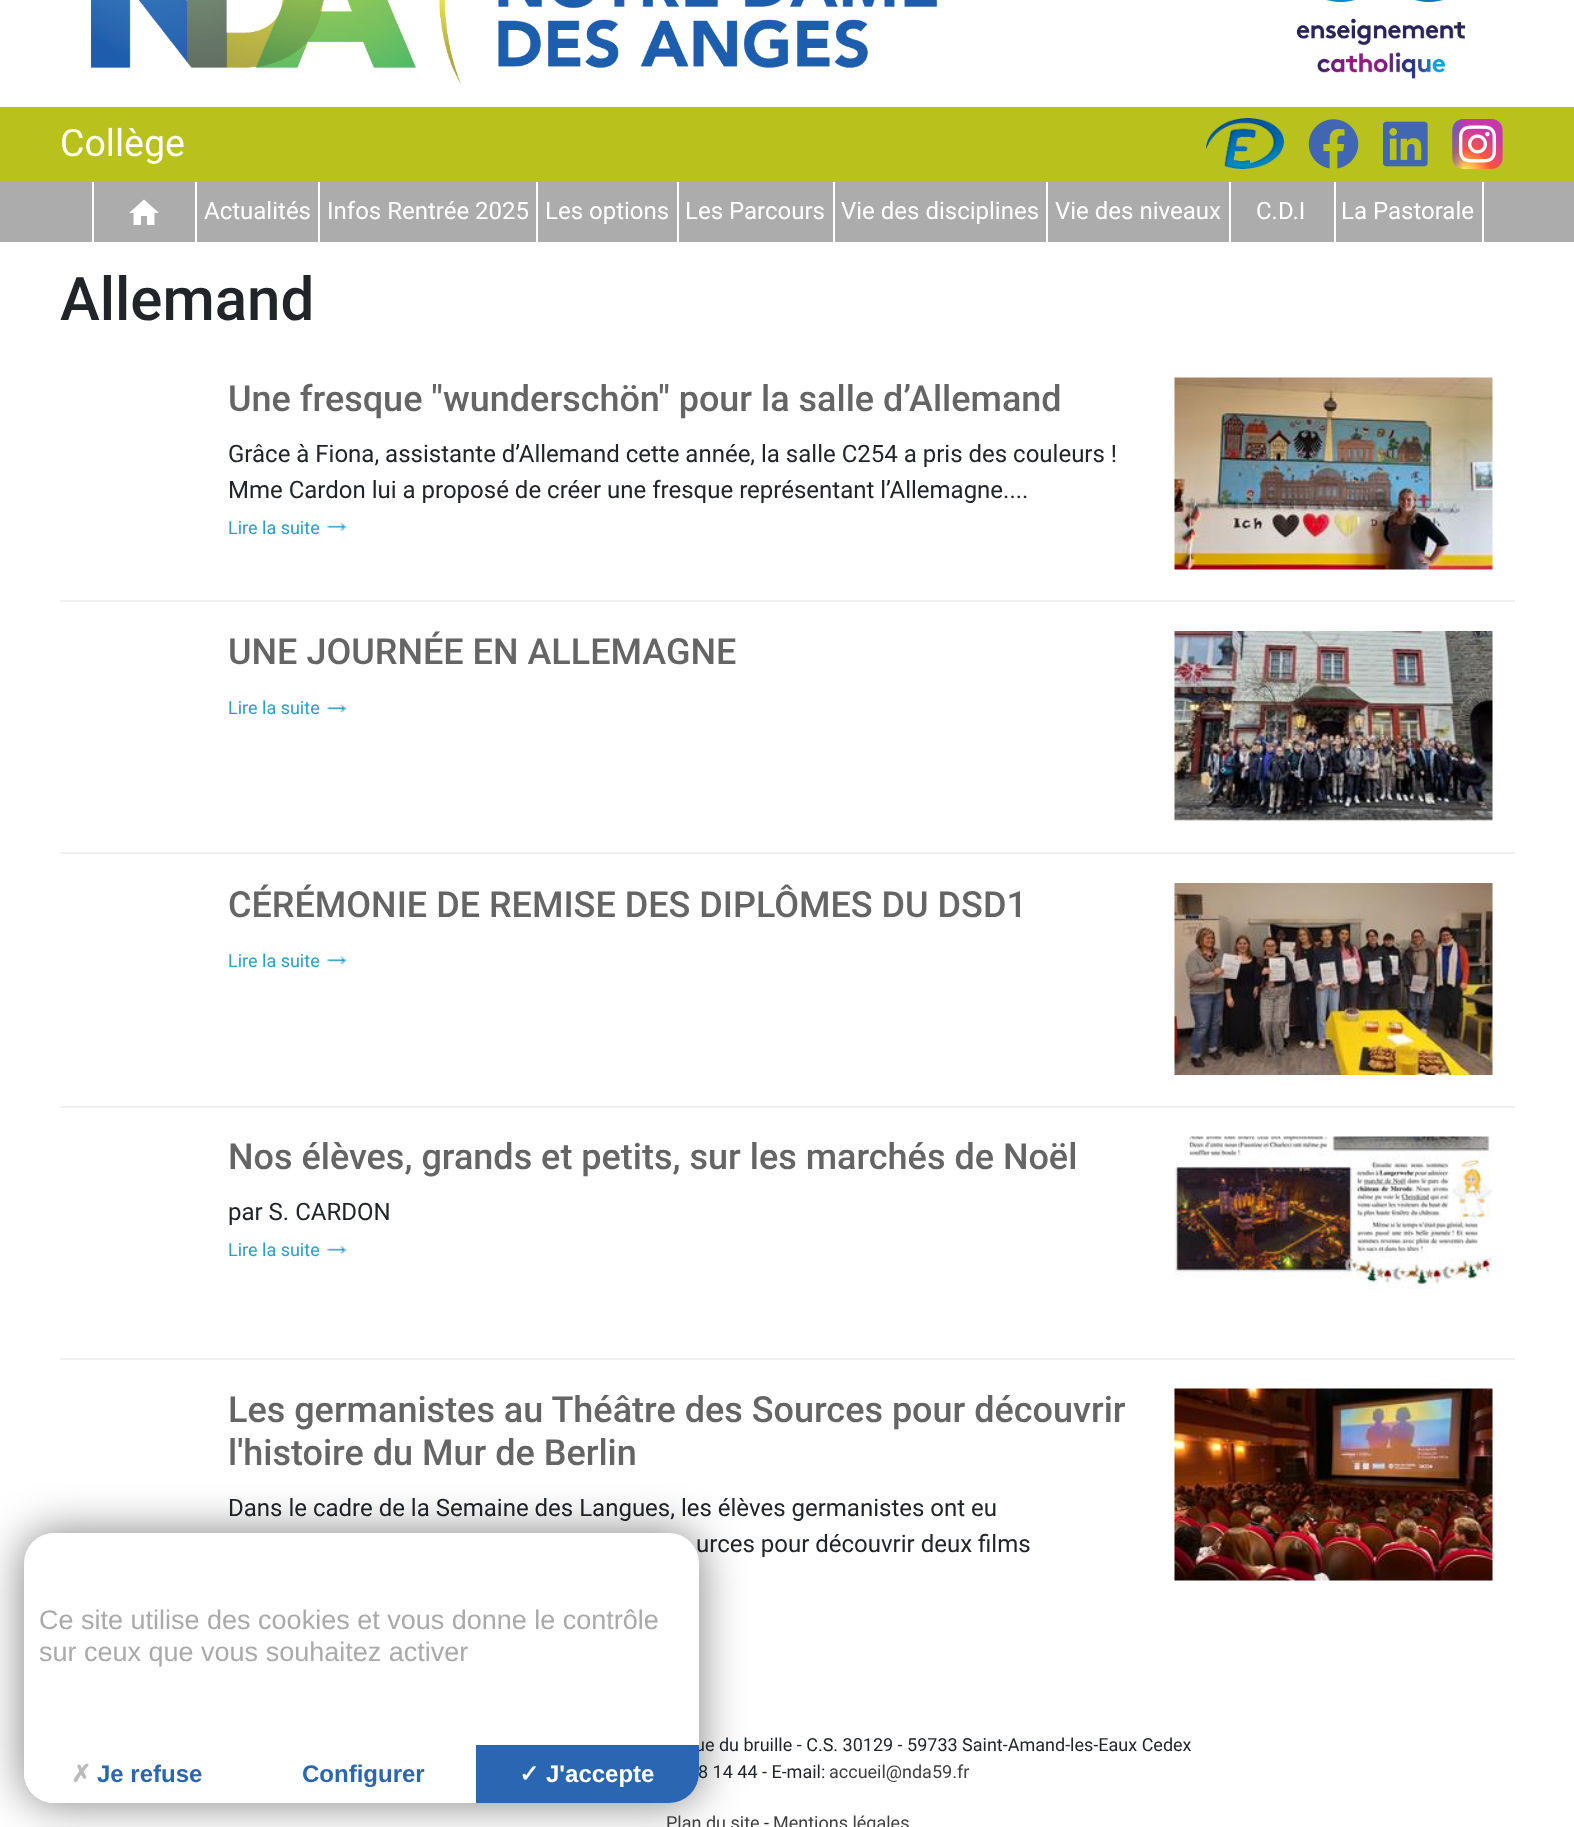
async function draw(canvas) {
	canvas.width = 1574;
	canvas.height = 1827;
	const c = canvas.getContext('2d');
	c.miterLimit = 4;
	c.fontKerning = 'normal';
	async function loadImage(src) {
		const img = new Image();
		img.src = src;
		await img.decode();
		return img;
	}

	c.fillStyle = '#fff';
	c.fillRect(0, 0, 1574, 1827);
	c.drawImage(await loadImage('img1.png'), 90, 0, 847, 86);
	c.drawImage(await loadImage('img2.png'), 1296, 0, 170, 79);
	c.fillStyle = '#b9c11c';
	c.fillRect(0, 107, 1574, 75);
	c.font = '37.5px Roboto';
	c.fillStyle = '#fff';
	c.fillText('Collège', 60, 156);
	c.drawImage(await loadImage('img3.png'), 1206, 118, 78, 51);
	c.drawImage(await loadImage('img4.png'), 1308, 119, 51, 50);
	c.drawImage(await loadImage('img5.png'), 1383, 121, 45, 46);
	c.drawImage(await loadImage('img6.png'), 1452, 119, 51, 51);
	for (const [x, y, w, h, color] of [
		[0, 182, 1574, 60, '#acacad'],
		[195, 182, 2, 60, '#fff'],
		[92, 182, 2, 60, '#fff'],
	]) {
		c.fillStyle = color;
		c.fillRect(x, y, w, h);
	}
	c.drawImage(await loadImage('img7.png'), 129, 199, 30, 26);
	c.fillRect(318, 182, 2, 60);
	c.font = '24px Roboto';
	c.fillText('Actualités', 204, 219);
	c.fillRect(536, 182, 2, 60);
	c.fillText('Infos Rentrée 2025', 327, 219);
	c.fillRect(677, 182, 2, 60);
	c.fillText('Les options', 545, 219);
	c.fillRect(833, 182, 2, 60);
	c.fillText('Les Parcours', 685, 219);
	c.fillRect(1046, 182, 2, 60);
	c.fillText('Vie des disciplines', 841, 219);
	c.fillRect(1229, 182, 2, 60);
	c.fillText('Vie des niveaux', 1055, 219);
	c.fillRect(1334, 182, 2, 60);
	c.fillText('C.D.I', 1256, 219);
	c.fillRect(1482, 182, 2, 60);
	c.fillText('La Pastorale', 1341, 219);
	c.font = '500 60px Roboto';
	c.fillStyle = '#212529';
	c.fillText('Allemand', 60, 320);
	c.font = '500 36px Roboto';
	c.fillStyle = '#656565';
	c.fillText('Une fresque "wunderschön" pour la salle d’Allemand', 228, 411);
	c.font = '24px Roboto';
	c.fillStyle = '#212529';
	c.fillText('Grâce à Fiona, assistante d’Allemand cette année, la salle C254 a pris des couleurs !', 228, 462);
	c.fillText('Mme Cardon lui a proposé de créer une fresque représentant l’Allemagne....', 228, 498);
	c.font = '18px Roboto';
	c.fillStyle = '#2b9fc8';
	c.fillText('Lire la suite', 228, 534);
	c.drawImage(await loadImage('img8.png'), 326, 520, 21, 11);
	c.drawImage(await loadImage('img9.png'), 1174, 377, 319, 193);
	c.fillStyle = '#efefef';
	c.fillRect(60, 600, 1455, 2);
	c.font = '500 36px Roboto';
	c.fillStyle = '#656565';
	c.fillText('UNE JOURNÉE EN ALLEMAGNE', 228, 664);
	c.font = '18px Roboto';
	c.fillStyle = '#2b9fc8';
	c.fillText('Lire la suite', 228, 714);
	c.drawImage(await loadImage('img10.png'), 326, 702, 21, 11);
	c.drawImage(await loadImage('img11.png'), 1174, 631, 319, 191);
	c.fillStyle = '#efefef';
	c.fillRect(60, 852, 1455, 2);
	c.font = '500 36px Roboto';
	c.fillStyle = '#656565';
	c.fillText('CÉRÉMONIE DE REMISE DES DIPLÔMES DU DSD1', 228, 917);
	c.font = '18px Roboto';
	c.fillStyle = '#2b9fc8';
	c.fillText('Lire la suite', 228, 967);
	c.drawImage(await loadImage('img10.png'), 326, 954, 21, 11);
	c.drawImage(await loadImage('img12.png'), 1174, 883, 319, 192);
	c.fillStyle = '#efefef';
	c.fillRect(60, 1106, 1455, 2);
	c.font = '500 36px Roboto';
	c.fillStyle = '#656565';
	c.fillText('Nos élèves, grands et petits, sur les marchés de Noël', 228, 1169);
	c.font = '24px Roboto';
	c.fillStyle = '#212529';
	c.fillText('par S. CARDON', 228, 1220);
	c.font = '18px Roboto';
	c.fillStyle = '#2b9fc8';
	c.fillText('Lire la suite', 228, 1256);
	c.drawImage(await loadImage('img8.png'), 326, 1243, 21, 11);
	c.drawImage(await loadImage('img13.png'), 1174, 1136, 319, 153);
	c.fillStyle = '#efefef';
	c.fillRect(60, 1358, 1455, 2);
	c.font = '500 36px Roboto';
	c.fillStyle = '#656565';
	c.fillText('Les germanistes au Théâtre des Sources pour découvrir', 228, 1422);
	c.fillText('l\'histoire du Mur de Berlin', 228, 1465);
	c.font = '24px Roboto';
	c.fillStyle = '#212529';
	c.fillText('Dans le cadre de la Semaine des Langues, les élèves germanistes ont eu', 228, 1516);
	c.fillText('urces pour découvrir deux films', 696, 1552);
	c.drawImage(await loadImage('img14.png'), 1174, 1388, 319, 193);
	c.fillStyle = '#00000080';
	c.filter = 'blur(22.5px)';
	c.beginPath();
	c.roundRect(24, 1533, 675, 270, 30);
	c.fill();
	c.filter = 'none';
	c.font = '18px Roboto';
	c.fillStyle = '#212529';
	c.fillText('ue du bruille - C.S. 30129 - 59733 Saint-Amand-les-Eaux Cedex', 695, 1751);
	c.fillText('8 14 44 - E-mail:', 698, 1778);
	c.fillStyle = '#fff';
	c.beginPath();
	c.roundRect(24, 1533, 675, 270, 30);
	c.fill();
	c.font = '27px Liberation Sans';
	c.fillStyle = '#aaa';
	c.fillText('Ce site utilise des cookies et vous donne le contrôle', 39, 1629);
	c.fillText('sur ceux que vous souhaitez activer', 39, 1661);
	c.fillStyle = '#fff';
	c.beginPath();
	c.roundRect(24, 1745, 225, 58, [0, 0, 0, 30]);
	c.fill();
	c.font = 'bold 24px DejaVu Sans';
	c.fillStyle = '#bbb';
	c.fillText('✗', 71, 1782);
	c.font = 'bold 24px Liberation Sans';
	c.fillStyle = '#2a66b1';
	c.fillText('Je refuse', 97, 1782);
	c.beginPath();
	c.roundRect(474, 1745, 225, 58, [0, 0, 30, 0]);
	c.fill();
	c.fillStyle = '#fff';
	c.fillRect(474, 1745, 2, 58);
	c.fillStyle = '#2a66b1';
	c.fillText('Configurer', 302, 1782);
	c.font = 'bold 24px DejaVu Sans';
	c.fillStyle = '#fff';
	c.fillText('✓', 519, 1782);
	c.font = 'bold 24px Liberation Sans';
	c.fillText('J\'accepte', 546, 1782);
	c.font = '18px Roboto';
	c.fillStyle = '#404040';
	c.fillText('accueil@nda59.fr', 829, 1778);
	c.fillText('Plan du site', 666, 1829);
	c.fillStyle = '#212529';
	c.fillText('-', 764, 1829);
	c.fillStyle = '#404040';
	c.fillText('Mentions légales', 773, 1829);
}

draw(document.querySelector('canvas'));
